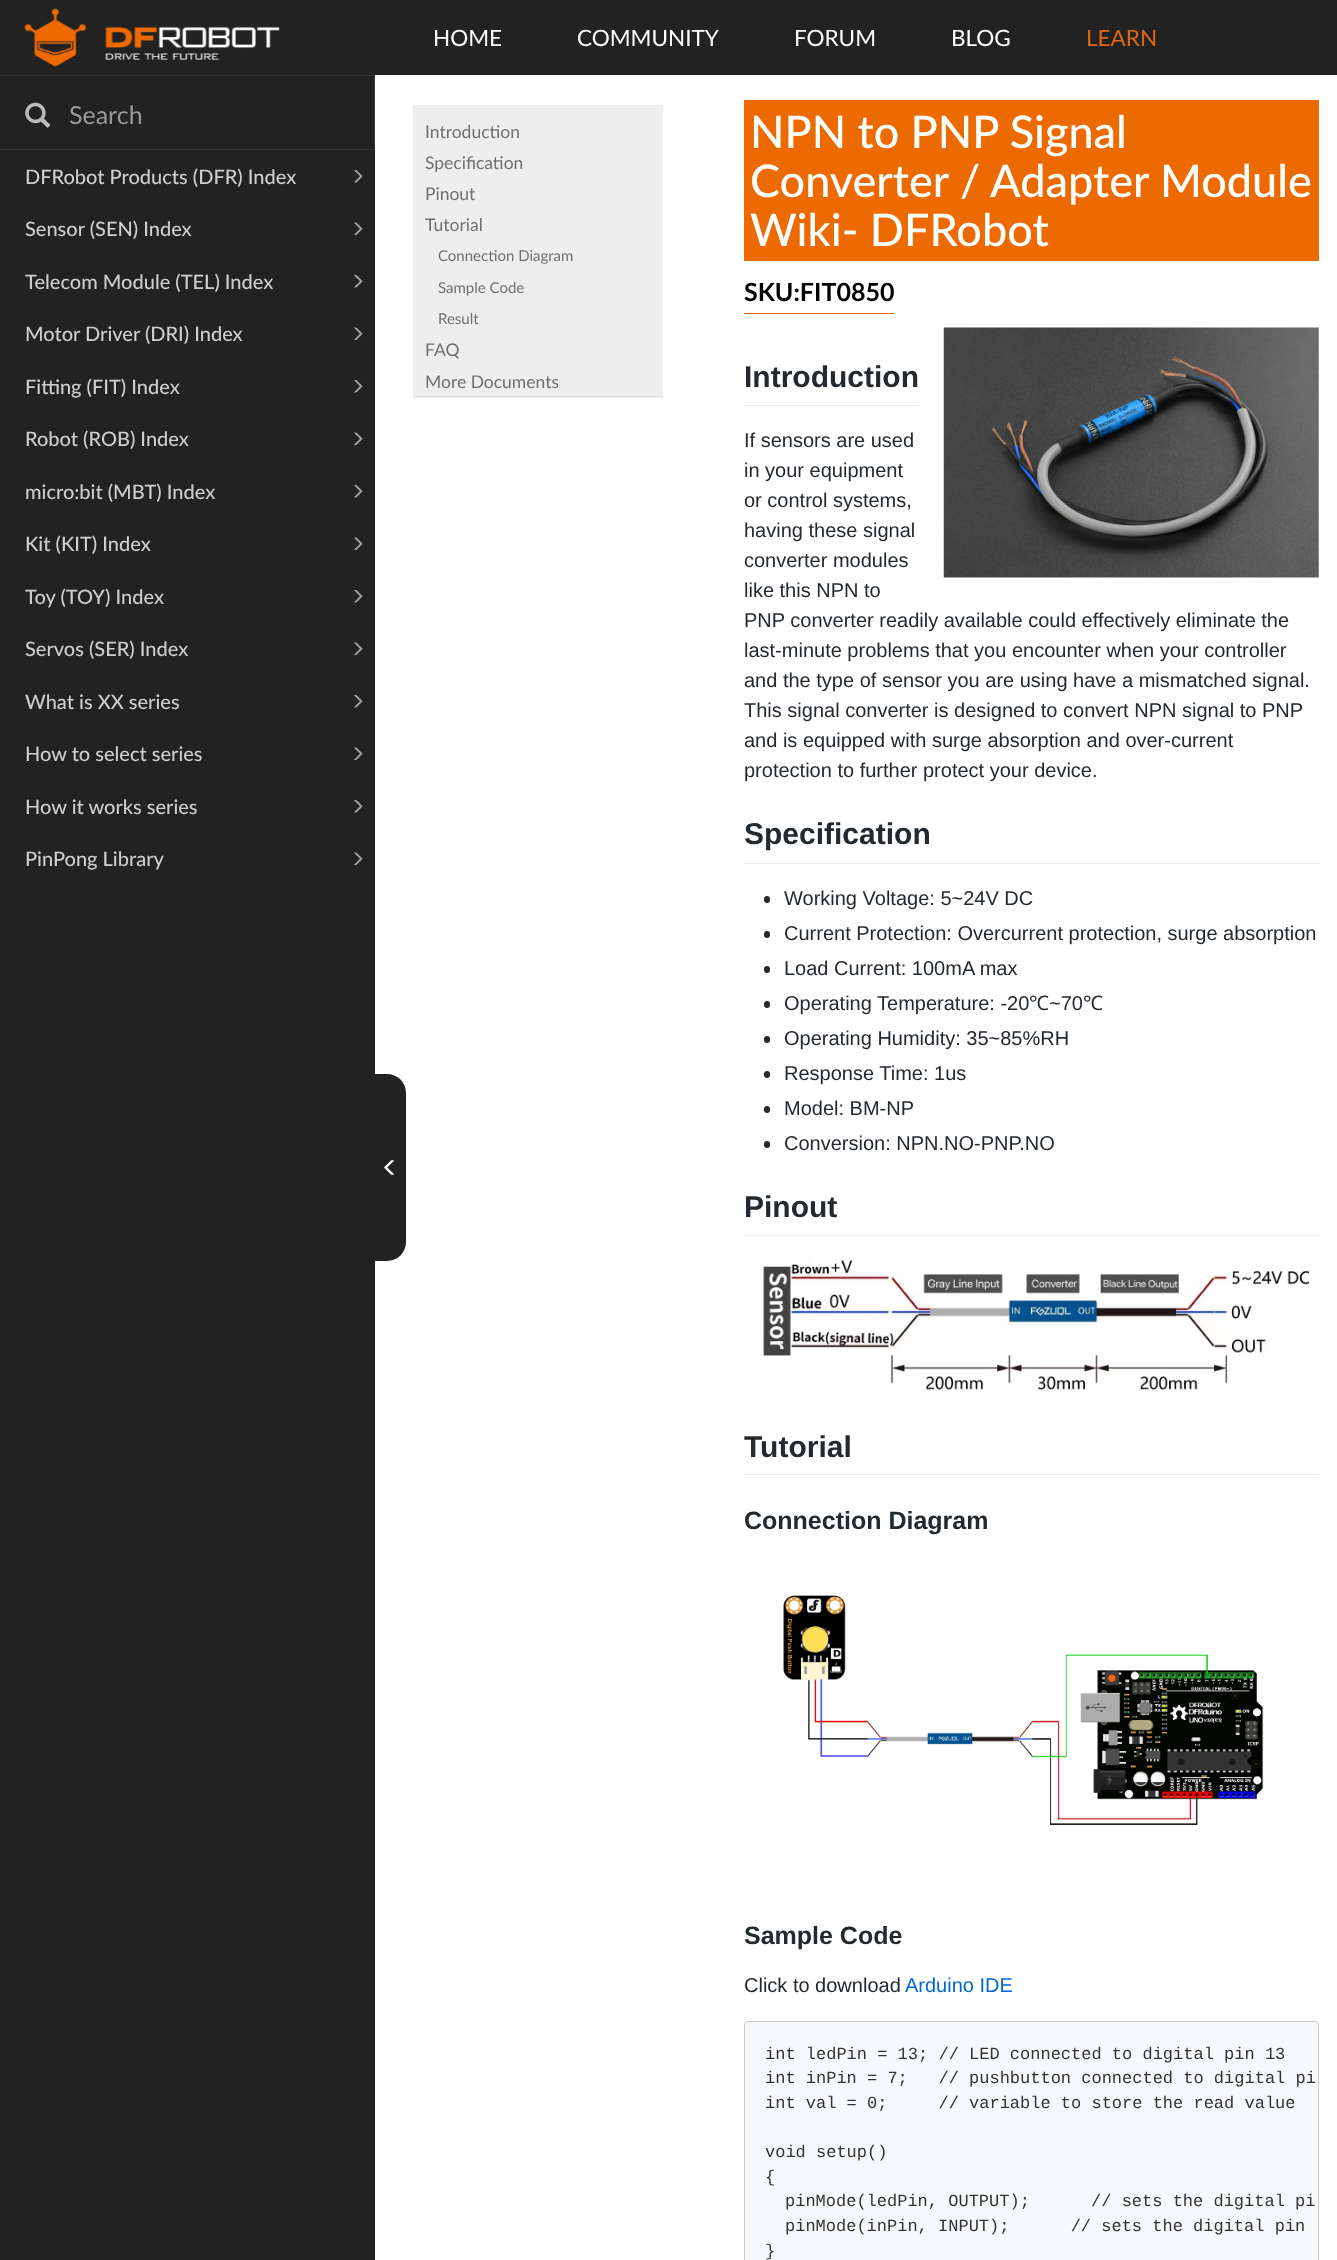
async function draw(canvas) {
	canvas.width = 1337;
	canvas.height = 2260;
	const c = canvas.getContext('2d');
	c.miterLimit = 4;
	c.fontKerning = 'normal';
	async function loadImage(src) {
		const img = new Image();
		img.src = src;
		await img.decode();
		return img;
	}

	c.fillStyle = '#fff';
	c.fillRect(0, 0, 1337, 2260);
	c.fillStyle = '#222';
	c.fillRect(0, 0, 1337, 75);
	c.drawImage(await loadImage('img1.png'), 24, 8, 256, 59);
	c.font = '22.5px Lato';
	c.fillStyle = '#fff';
	for (const [text, x, y] of [
		['HOME', 433, 46],
		['COMMUNITY', 577, 46],
		['FORUM', 794, 46],
		['BLOG', 951, 46],
	]) {
		c.fillText(text, x, y);
	}
	c.fillStyle = '#e1680e';
	c.fillText('LEARN', 1086, 46);
	for (const [x, y, w, h, color] of [
		[0, 76, 375, 2184, '#222'],
		[0, 75, 375, 1, '#363636'],
		[374, 75, 1, 75, '#363636'],
		[0, 149, 375, 1, '#363636'],
	]) {
		c.fillStyle = color;
		c.fillRect(x, y, w, h);
	}
	c.drawImage(await loadImage('img2.png'), 25, 102, 26, 26);
	c.font = '25px Lato';
	c.fillStyle = '#999';
	c.fillText('Search', 69, 124);
	c.font = '500 20px Lato';
	c.fillStyle = '#cbcdcf';
	c.fillText('DFRobot Products (DFR) Index', 25, 184);
	c.drawImage(await loadImage('img3.png'), 354, 170, 9, 13);
	c.fillText('Sensor (SEN) Index', 25, 236);
	c.drawImage(await loadImage('img4.png'), 354, 222, 9, 13);
	c.fillText('Telecom Module (TEL) Index', 25, 289);
	c.drawImage(await loadImage('img3.png'), 354, 275, 9, 13);
	c.fillText('Motor Driver (DRI) Index', 25, 341);
	c.drawImage(await loadImage('img4.png'), 354, 327, 9, 13);
	c.fillText('Fitting (FIT) Index', 25, 394);
	c.drawImage(await loadImage('img3.png'), 354, 380, 9, 13);
	c.fillText('Robot (ROB) Index', 25, 446);
	c.drawImage(await loadImage('img4.png'), 354, 432, 9, 13);
	c.fillText('micro:bit (MBT) Index', 25, 499);
	c.drawImage(await loadImage('img3.png'), 354, 485, 9, 13);
	c.fillText('Kit (KIT) Index', 25, 551);
	c.drawImage(await loadImage('img4.png'), 354, 537, 9, 13);
	c.fillText('Toy (TOY) Index', 25, 604);
	c.drawImage(await loadImage('img3.png'), 354, 590, 9, 13);
	c.fillText('Servos (SER) Index', 25, 656);
	c.drawImage(await loadImage('img4.png'), 354, 642, 9, 13);
	c.fillText('What is XX series', 25, 709);
	c.drawImage(await loadImage('img3.png'), 354, 695, 9, 13);
	c.fillText('How to select series', 25, 761);
	c.drawImage(await loadImage('img4.png'), 354, 747, 9, 13);
	c.fillText('How it works series', 25, 814);
	c.drawImage(await loadImage('img3.png'), 354, 800, 9, 13);
	c.fillText('PinPong Library', 25, 866);
	c.drawImage(await loadImage('img4.png'), 354, 852, 9, 13);
	c.fillStyle = '#222';
	c.beginPath();
	c.roundRect(375, 1074, 31, 187, [0, 19, 19, 0]);
	c.fill();
	c.drawImage(await loadImage('img5.png'), 384, 1160, 10, 15);
	c.fillStyle = '#eee';
	c.fillRect(413, 105, 250, 293);
	c.fillStyle = '#ddd';
	c.fillRect(413, 396, 250, 1);
	c.font = '17.5px Lato';
	c.fillStyle = '#707070';
	for (const [text, x, y] of [
		['Introduction', 425, 138],
		['Specification', 425, 169],
		['Pinout', 425, 200],
		['Tutorial', 425, 231],
	]) {
		c.fillText(text, x, y);
	}
	c.font = '15px Lato';
	for (const [text, x, y] of [
		['Connection Diagram', 438, 261],
		['Sample Code', 438, 293],
		['Result', 438, 324],
	]) {
		c.fillText(text, x, y);
	}
	c.font = '17.5px Lato';
	c.fillText('FAQ', 425, 356);
	c.fillText('More Documents', 425, 388);
	c.fillStyle = '#ed6a01';
	c.fillRect(744, 100, 575, 161);
	c.font = '500 45px Lato';
	c.fillStyle = '#fff';
	for (const [text, x, y] of [
		['NPN to PNP Signal', 750, 148],
		['Converter / Adapter Module', 750, 197],
		['Wiki- DFRobot', 750, 246],
	]) {
		c.fillText(text, x, y);
	}
	c.font = 'bold 25px Lato';
	c.fillStyle = '#000';
	c.fillText('SKU:FIT0850', 744, 301);
	c.fillStyle = '#ed6a01';
	c.fillRect(744, 313, 150, 1);
	c.fillStyle = '#eaecef';
	c.fillRect(744, 405, 175, 1);
	c.font = 'bold 30px Liberation Sans';
	c.fillStyle = '#24292e';
	c.fillText('Introduction', 744, 387);
	c.drawImage(await loadImage('img6.png'), 943, 327, 376, 251);
	c.font = '20px Liberation Sans';
	for (const [text, x, y] of [
		['If sensors are used', 744, 447],
		['in your equipment', 744, 477],
		['or control systems,', 744, 507],
		['having these signal', 744, 537],
		['converter modules', 744, 567],
		['like this NPN to', 744, 597],
		['PNP converter readily available could effectively eliminate the', 744, 627],
		['last-minute problems that you encounter when your controller', 744, 657],
		['and the type of sensor you are using have a mismatched signal.', 744, 687],
		['This signal converter is designed to convert NPN signal to PNP', 744, 717],
		['and is equipped with surge absorption and over-current', 744, 747],
		['protection to further protect your device.', 744, 777],
	]) {
		c.fillText(text, x, y);
	}
	c.fillStyle = '#eaecef';
	c.fillRect(744, 863, 575, 1);
	c.font = 'bold 30px Liberation Sans';
	c.fillStyle = '#24292e';
	c.fillText('Specification', 744, 844);
	c.beginPath();
	c.roundRect(764, 896, 6, 7, 3);
	c.fill();
	c.font = '20px Liberation Sans';
	c.fillText('Working Voltage: 5~24V DC', 784, 905);
	c.beginPath();
	c.roundRect(764, 931, 6, 7, 3);
	c.fill();
	c.fillText('Current Protection: Overcurrent protection, surge absorption', 784, 940);
	c.beginPath();
	c.roundRect(764, 966, 6, 7, 3);
	c.fill();
	c.fillText('Load Current: 100mA max', 784, 975);
	c.beginPath();
	c.roundRect(764, 1001, 6, 7, 3);
	c.fill();
	c.fillText('Operating Temperature: -20', 784, 1010);
	c.font = '20px Noto Sans';
	c.fillText('℃', 1029, 1010);
	c.font = '20px Liberation Sans';
	c.fillText('~70', 1049, 1010);
	c.font = '20px Noto Sans';
	c.fillText('℃', 1083, 1010);
	c.beginPath();
	c.roundRect(764, 1036, 6, 7, 3);
	c.fill();
	c.font = '20px Liberation Sans';
	c.fillText('Operating Humidity: 35~85%RH', 784, 1045);
	c.beginPath();
	c.roundRect(764, 1071, 6, 7, 3);
	c.fill();
	c.fillText('Response Time: 1us', 784, 1080);
	c.beginPath();
	c.roundRect(764, 1106, 6, 7, 3);
	c.fill();
	c.fillText('Model: BM-NP', 784, 1115);
	c.beginPath();
	c.roundRect(764, 1141, 6, 7, 3);
	c.fill();
	c.fillText('Conversion: NPN.NO-PNP.NO', 784, 1150);
	c.fillStyle = '#eaecef';
	c.fillRect(744, 1235, 575, 1);
	c.font = 'bold 30px Liberation Sans';
	c.fillStyle = '#24292e';
	c.fillText('Pinout', 744, 1217);
	c.drawImage(await loadImage('img7.png'), 763, 1257, 546, 133);
	c.fillStyle = '#eaecef';
	c.fillRect(744, 1474, 575, 1);
	c.fillStyle = '#24292e';
	c.fillText('Tutorial', 744, 1457);
	c.font = 'bold 25px Liberation Sans';
	c.fillText('Connection Diagram', 744, 1529);
	c.drawImage(await loadImage('img8.png'), 783, 1595, 481, 230);
	c.fillText('Sample Code', 744, 1944);
	c.font = '20px Liberation Sans';
	c.fillText('Click to download', 744, 1992);
	c.fillStyle = '#0366d6';
	c.fillText('Arduino IDE', 905, 1992);
	c.fillStyle = '#f6f8fa';
	c.beginPath();
	c.roundRect(744.5, 2021.5, 574, 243, 3.5);
	c.fill();
	c.strokeStyle = '#ccc';
	c.stroke();
	c.font = '17px Liberation Mono';
	c.fillStyle = '#333';
	for (const [text, x, y] of [
		['int ledPin = 13; // LED connected to digital pin 13', 765, 2059],
		['int inPin = 7;   // pushbutton connected to digital pi', 765, 2083],
		['int val = 0;     // variable to store the read value', 765, 2108],
		['void setup()', 765, 2157],
		['{', 765, 2182],
		['pinMode(ledPin, OUTPUT);      // sets the digital pi', 785, 2206],
		['pinMode(inPin, INPUT);      // sets the digital pin', 785, 2231],
		['}', 765, 2256],
	]) {
		c.fillText(text, x, y);
	}
}

draw(document.querySelector('canvas'));
